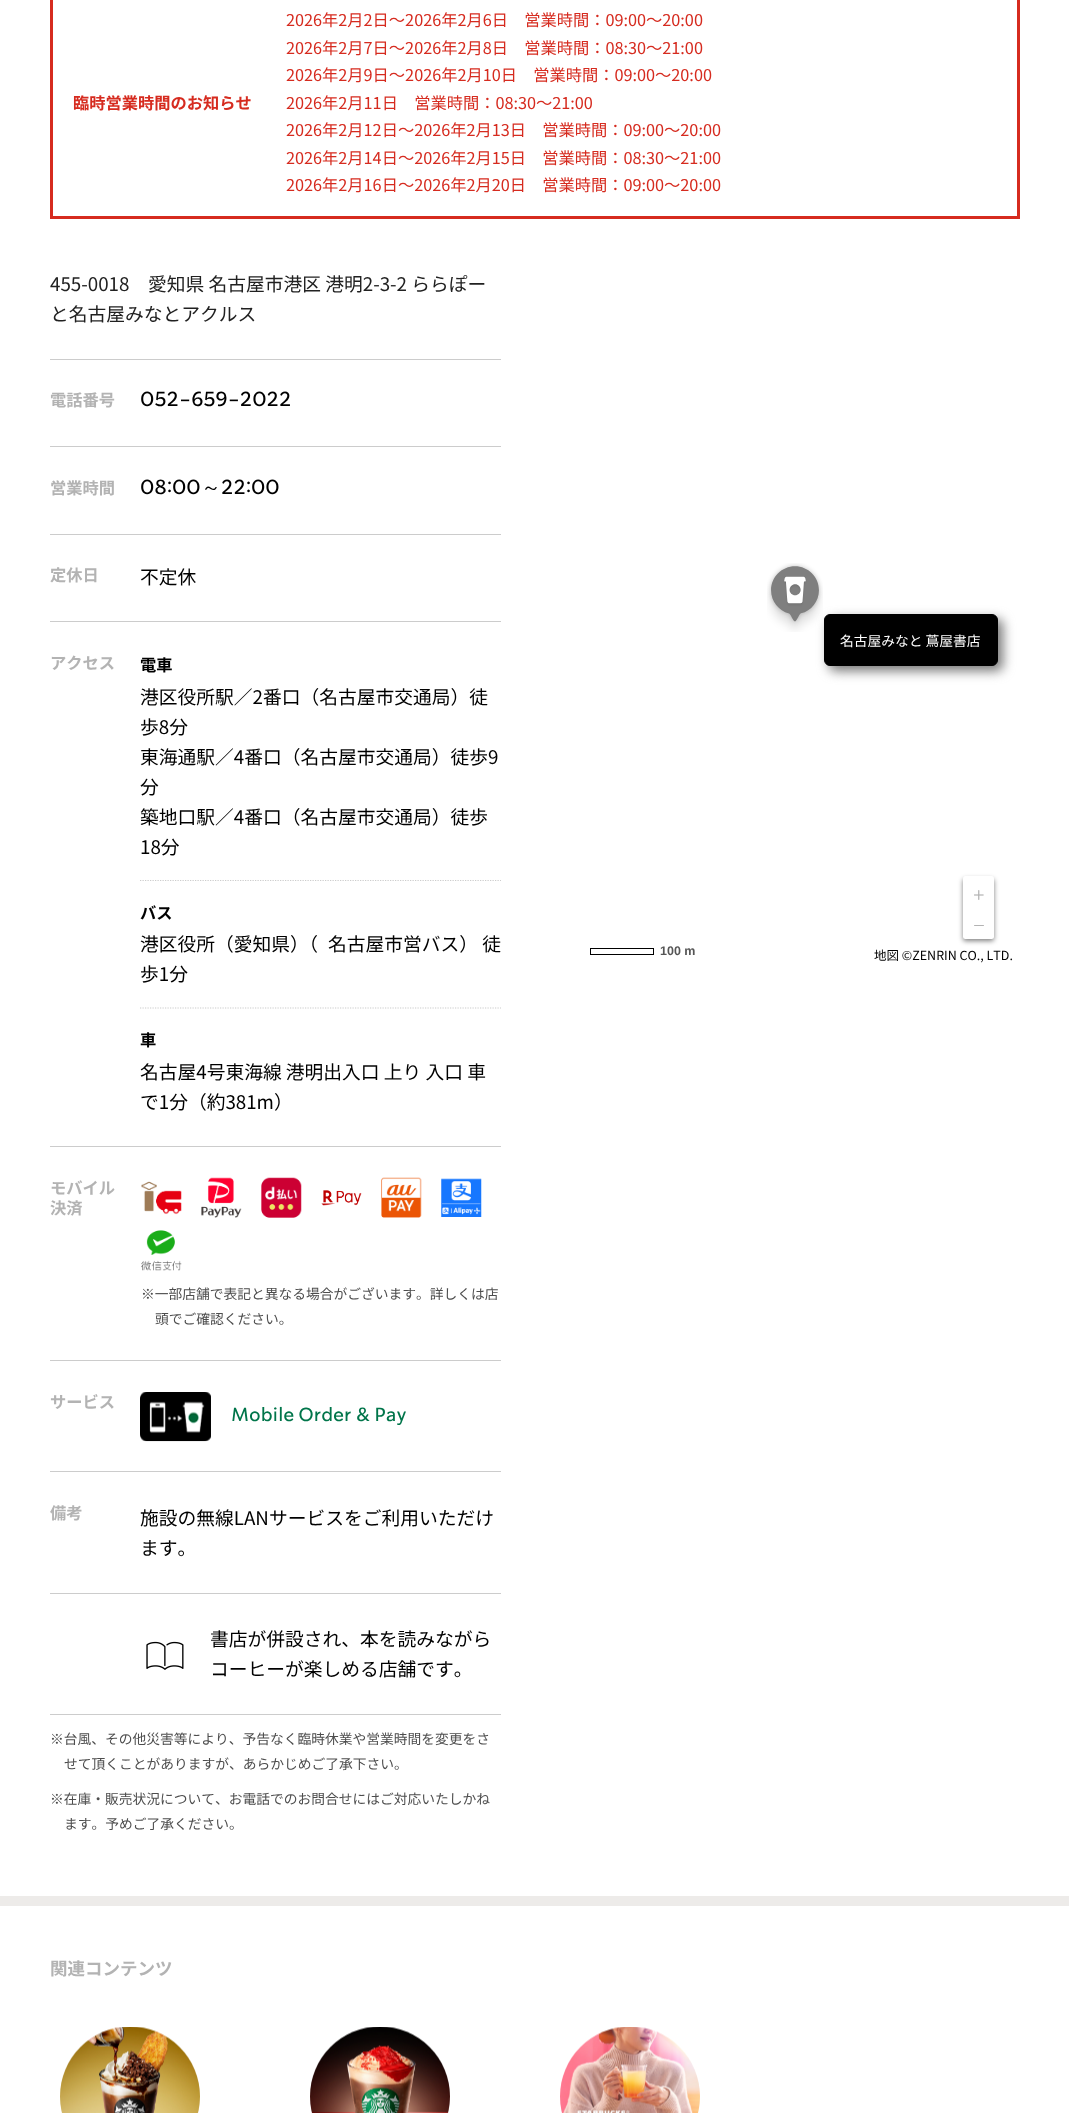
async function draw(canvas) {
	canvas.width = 1069;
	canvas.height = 2113;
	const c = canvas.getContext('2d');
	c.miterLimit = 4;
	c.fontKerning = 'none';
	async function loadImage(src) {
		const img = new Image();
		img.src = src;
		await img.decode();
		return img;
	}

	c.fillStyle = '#fff';
	c.fillRect(0, 0, 1069, 2113);
	c.strokeStyle = '#d62b1f';
	c.lineWidth = 3;
	c.strokeRect(51.5, -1.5, 967, 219);
	c.font = 'bold 16.25px Noto Sans JP';
	c.fillStyle = '#d62b1f';
	c.fillText('臨時営業時間のお知らせ', 73, 109);
	c.font = '16.25px Noto Sans JP';
	for (const [text, x, y] of [
		['2026年2月2日～2026年2月6日　営業時間：09:00～20:00', 286, 26],
		['2026年2月7日～2026年2月8日　営業時間：08:30～21:00', 286, 54],
		['2026年2月9日～2026年2月10日　営業時間：09:00～20:00', 286, 81],
		['2026年2月11日　営業時間：08:30～21:00', 286, 109],
		['2026年2月12日～2026年2月13日　営業時間：09:00～20:00', 286, 136],
		['2026年2月14日～2026年2月15日　営業時間：08:30～21:00', 286, 164],
		['2026年2月16日～2026年2月20日　営業時間：09:00～20:00', 286, 191],
	]) {
		c.fillText(text, x, y);
	}
	c.fillStyle = '#ccc';
	c.fillRect(50, 359, 451, 1);
	c.font = '18.75px Noto Sans JP';
	c.fillStyle = '#212121';
	c.fillText('455-0018　愛知県 名古屋市港区 港明2-3-2 ららぽー', 50, 291);
	c.fillText('と名古屋みなとアクルス', 50, 321);
	c.fillStyle = '#ccc';
	c.fillRect(50, 446, 451, 1);
	c.font = 'bold 16.25px Noto Sans JP';
	c.fillStyle = '#b3b3b3';
	c.fillText('電話番号', 50, 406);
	c.font = '20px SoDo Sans';
	c.fillStyle = '#000';
	c.fillText('052-659-2022', 140, 406);
	c.fillStyle = '#ccc';
	c.fillRect(50, 534, 451, 1);
	c.font = 'bold 16.25px Noto Sans JP';
	c.fillStyle = '#b3b3b3';
	c.fillText('営業時間', 50, 494);
	c.font = '20px SoDo Sans';
	c.fillStyle = '#000';
	c.fillText('08:00', 140, 494);
	c.font = '500 20px WenQuanYi Zen Hei';
	c.fillText('～', 201, 494);
	c.font = '20px SoDo Sans';
	c.fillText('22:00', 221, 494);
	c.fillStyle = '#ccc';
	c.fillRect(50, 621, 451, 1);
	c.font = 'bold 16.25px Noto Sans JP';
	c.fillStyle = '#b3b3b3';
	c.fillText('定休日', 50, 581);
	c.font = '18.75px Noto Sans JP';
	c.fillStyle = '#000';
	c.fillText('不定休', 140, 584);
	c.fillStyle = '#ccc';
	c.fillRect(50, 1146, 451, 1);
	c.font = 'bold 16.25px Noto Sans JP';
	c.fillStyle = '#b3b3b3';
	c.fillText('アクセス', 50, 669);
	c.beginPath();
	c.moveTo(140, 880.5);
	c.lineTo(501, 880.5);
	c.strokeStyle = '#ccc';
	c.lineWidth = 1.2;
	c.setLineDash([1.25, 1.25]);
	c.stroke();
	c.fillStyle = '#000';
	c.fillText('電車', 140, 671);
	c.font = '18.75px Noto Sans JP';
	for (const [text, x, y] of [
		['港区役所駅／2番口（名古屋市交通局）徒', 140, 704],
		['歩8分', 140, 734],
		['東海通駅／4番口（名古屋市交通局）徒歩9', 140, 764],
		['分', 140, 794],
		['築地口駅／4番口（名古屋市交通局）徒歩', 140, 824],
		['18分', 140, 854],
	]) {
		c.fillText(text, x, y);
	}
	c.beginPath();
	c.moveTo(140, 1008);
	c.lineTo(501, 1008);
	c.stroke();
	c.font = 'bold 16.25px Noto Sans JP';
	c.fillText('バス', 140, 919);
	c.font = '18.75px Noto Sans JP';
	c.fillText('港区役所（愛知県）（', 140, 951);
	c.fillText('名古屋市営バス） 徒', 328, 951);
	c.fillText('歩1分', 140, 981);
	c.font = 'bold 16.25px Noto Sans JP';
	c.fillText('車', 140, 1046);
	c.font = '18.75px Noto Sans JP';
	c.fillText('名古屋4号東海線 港明出入口 上り 入口 車', 140, 1079);
	c.fillText('で1分（約381m）', 140, 1109);
	c.fillStyle = '#ccc';
	c.fillRect(50, 1360, 451, 1);
	c.font = 'bold 16.25px Noto Sans JP';
	c.fillStyle = '#b3b3b3';
	c.fillText('モバイル', 50, 1194);
	c.fillText('決済', 50, 1214);
	c.drawImage(await loadImage('img1.png'), 141, 1181, 41, 34);
	c.drawImage(await loadImage('img2.png'), 201, 1177, 41, 41);
	c.drawImage(await loadImage('img3.png'), 261, 1177, 41, 41);
	c.drawImage(await loadImage('img4.png'), 321, 1190, 41, 16);
	c.drawImage(await loadImage('img5.png'), 381, 1177, 41, 41);
	c.drawImage(await loadImage('img6.png'), 441, 1178, 41, 39);
	c.drawImage(await loadImage('img7.png'), 141, 1230, 41, 41);
	c.font = '13.75px Noto Sans JP';
	c.fillStyle = '#4d4d4d';
	c.fillText('※一部店舗で表記と異なる場合がございます。詳しくは店', 141, 1299);
	c.fillText('頭でご確認ください。', 155, 1324);
	c.fillStyle = '#ccc';
	c.fillRect(50, 1471, 451, 1);
	c.font = 'bold 16.25px Noto Sans JP';
	c.fillStyle = '#b3b3b3';
	c.fillText('サービス', 50, 1408);
	c.drawImage(await loadImage('img8.png'), 140, 1392, 71, 50);
	c.font = '18.75px SoDo Sans';
	c.fillStyle = '#00754a';
	c.fillText('Mobile Order & Pay', 231, 1421);
	c.fillStyle = '#ccc';
	c.fillRect(50, 1593, 451, 1);
	c.font = 'bold 16.25px Noto Sans JP';
	c.fillStyle = '#b3b3b3';
	c.fillText('備考', 50, 1519);
	c.font = '18.75px Noto Sans JP';
	c.fillStyle = '#000';
	c.fillText('施設の無線LANサービスをご利用いただけ', 140, 1525);
	c.fillText('ます。', 140, 1555);
	c.fillStyle = '#ccc';
	c.fillRect(50, 1714, 451, 1);
	c.drawImage(await loadImage('img9.png'), 146, 1641, 38, 29);
	c.fillStyle = '#000';
	c.fillText('書店が併設され、本を読みながら', 210, 1646);
	c.fillText('コーヒーが楽しめる店舗です。', 210, 1676);
	c.font = '13.75px Noto Sans JP';
	c.fillStyle = '#4d4d4d';
	for (const [text, x, y] of [
		['※台風、その他災害等により、予告なく臨時休業や営業時間を変更をさ', 50, 1744],
		['せて頂くことがありますが、あらかじめご了承下さい。', 64, 1769],
		['※在庫・販売状況について、お電話でのお問合せにはご対応いたしかね', 50, 1804],
		['ます。予めご了承ください。', 64, 1829],
	]) {
		c.fillText(text, x, y);
	}
	c.drawImage(await loadImage('img10.png'), 767, 563, 56, 69);
	c.fillStyle = '#777';
	c.filter = 'blur(6px)';
	c.beginPath();
	c.roundRect(829, 619, 174, 52, 6);
	c.fill();
	c.filter = 'none';
	c.fillStyle = '#000';
	c.beginPath();
	c.roundRect(824.5, 614.5, 173, 51, 5.5);
	c.fill();
	c.strokeStyle = '#000';
	c.lineWidth = 1;
	c.setLineDash([]);
	c.stroke();
	c.fillStyle = '#fff';
	c.fillText('名古屋みなと 蔦屋書店', 840, 646);
	c.fillStyle = '#00000080';
	c.filter = 'blur(2.5px)';
	c.beginPath();
	c.roundRect(963, 879, 31, 62, 2.5);
	c.fill();
	c.filter = 'none';
	c.fillStyle = '#fff';
	c.beginPath();
	c.roundRect(963, 876, 31, 63, 2.5);
	c.fill();
	c.drawImage(await loadImage('img11.png'), 974, 890, 10, 10);
	c.fillStyle = '#b3b3b3';
	c.beginPath();
	c.roundRect(974, 925, 10, 1, 0.5);
	c.fill();
	c.strokeRect(590.5, 948.5, 63, 6);
	c.font = 'bold 12.5px Liberation Sans';
	c.fillStyle = '#555';
	c.fillText('100 m', 660, 955);
	c.font = '12.5px Noto Sans JP';
	c.fillStyle = '#000';
	c.fillText('地図 ©ZENRIN CO., LTD.', 874, 960);
	c.fillStyle = '#edebe9';
	c.fillRect(0, 1896, 1069, 10);
	c.font = 'bold 17.5px Noto Sans JP';
	c.fillStyle = '#b3b3b3';
	c.fillText('関連コンテンツ', 50, 1975);
	c.drawImage(await loadImage('img12.png'), 60, 2027, 140, 86);
	c.drawImage(await loadImage('img13.png'), 310, 2027, 140, 86);
	c.drawImage(await loadImage('img14.png'), 560, 2027, 140, 86);
}

draw(document.querySelector('canvas'));
